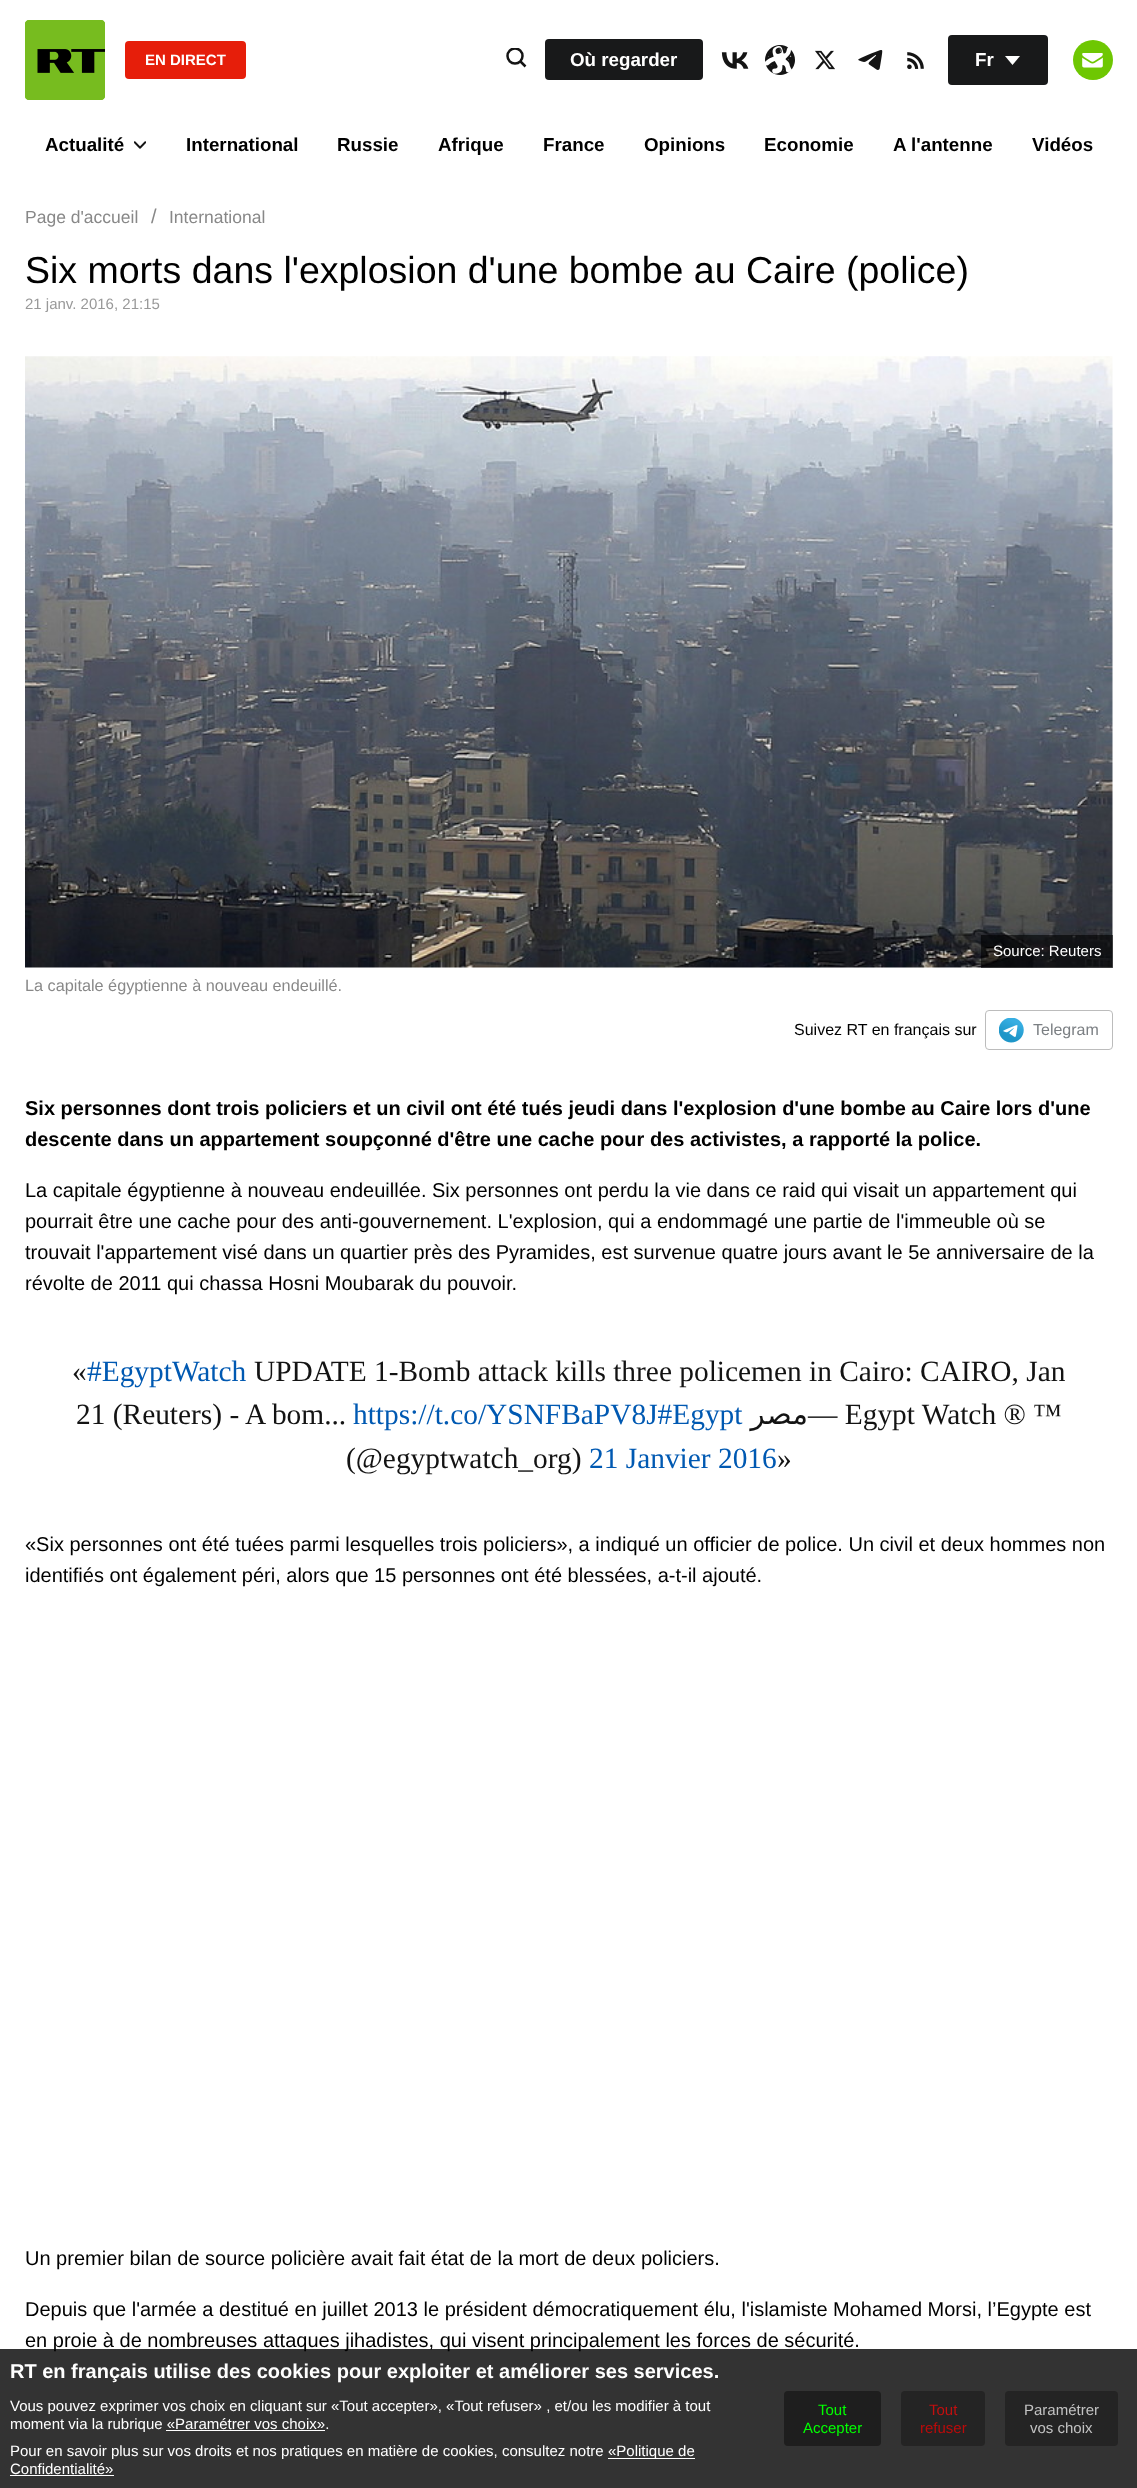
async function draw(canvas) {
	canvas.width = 1137;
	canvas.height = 2488;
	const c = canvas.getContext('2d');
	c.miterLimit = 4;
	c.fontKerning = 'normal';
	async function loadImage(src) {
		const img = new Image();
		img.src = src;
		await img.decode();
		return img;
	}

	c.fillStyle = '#fff';
	c.fillRect(0, 0, 1137, 2488);
	c.drawImage(await loadImage('img1.png'), 25, 20, 80, 80);
	c.fillStyle = '#e61e0a';
	c.beginPath();
	c.roundRect(125, 41, 121, 38, 4);
	c.fill();
	c.font = 'bold 15px Liberation Sans';
	c.fillStyle = '#fff';
	c.fillText('EN DIRECT', 145, 65);
	c.save();
	c.beginPath();
	c.rect(506, 48, 20, 20);
	c.clip();
	c.beginPath();
	c.arc(515, 56, 7.5, 0, 2 * Math.PI);
	c.strokeStyle = '#141414';
	c.lineWidth = 2.5;
	c.stroke();
	c.restore();
	c.beginPath();
	c.moveTo(520, 61);
	c.lineTo(525.5, 66.5);
	c.strokeStyle = '#141414';
	c.lineWidth = 2.5;
	c.stroke();
	c.fillStyle = '#18191a';
	c.beginPath();
	c.roundRect(545, 39, 158, 41, 4);
	c.fill();
	c.font = 'bold 18.75px Liberation Sans';
	c.fillStyle = '#fff';
	c.fillText('Où regarder', 570, 66);
	c.drawImage(await loadImage('img2.png'), 721, 52, 28, 17);
	c.drawImage(await loadImage('img3.png'), 765, 45, 30, 30);
	c.drawImage(await loadImage('img4.png'), 815, 50, 20, 20);
	c.drawImage(await loadImage('img5.png'), 858, 50, 25, 20);
	c.drawImage(await loadImage('img6.png'), 907, 52, 17, 18);
	c.fillStyle = '#18191a';
	c.beginPath();
	c.roundRect(948, 35, 100, 50, 4);
	c.fill();
	c.fillStyle = '#fff';
	c.fillText('Fr', 975, 66);
	c.beginPath();
	c.moveTo(1005, 56);
	c.lineTo(1020, 56);
	c.lineTo(1012.5, 65);
	c.closePath();
	c.fill();
	c.fillStyle = '#6ec702';
	c.beginPath();
	c.arc(1093, 60, 20, 0, 2 * Math.PI);
	c.fill();
	c.drawImage(await loadImage('img7.png'), 1082, 53, 21, 15);
	c.fillStyle = '#000';
	c.fillText('Actualité', 45, 151);
	c.drawImage(await loadImage('img8.png'), 134, 141, 12, 8);
	for (const [text, x, y] of [
		['International', 186, 151],
		['Russie', 337, 151],
		['Afrique', 438, 151],
		['France', 543, 151],
		['Opinions', 644, 151],
		['Economie', 764, 151],
		['A l\'antenne', 893, 151],
		['Vidéos', 1032, 151],
	]) {
		c.fillText(text, x, y);
	}
	c.font = '17.5px Liberation Sans';
	c.fillStyle = '#888';
	c.fillText('Page d\'accueil', 25, 223);
	c.font = '20px Liberation Sans';
	c.fillText('/', 151, 223);
	c.font = '17.5px Liberation Sans';
	c.fillText('International', 169, 223);
	c.font = '37.5px Liberation Sans';
	c.fillStyle = '#000';
	c.fillText('Six morts dans l\'explosion d\'une bombe au Caire (police)', 25, 283);
	c.font = '15px Liberation Sans';
	c.fillStyle = '#999';
	c.fillText('21 janv. 2016, 21:15', 25, 309);
	c.drawImage(await loadImage('img9.png'), 25, 356, 1088, 612);
	c.fillStyle = '#00000099';
	c.fillRect(981, 935, 132, 33);
	c.fillStyle = '#fff';
	c.fillText('Source: Reuters', 993, 956);
	c.font = '16.25px Liberation Sans';
	c.fillStyle = '#888';
	c.fillText('La capitale égyptienne à nouveau endeuillé.', 25, 991);
	c.font = '16px Liberation Sans';
	c.fillStyle = '#000';
	c.fillText('Suivez RT en français sur', 794, 1035);
	c.beginPath();
	c.roundRect(985.5, 1010.5, 127, 39, 3.5);
	c.strokeStyle = '#bcbcbc';
	c.lineWidth = 1;
	c.stroke();
	c.drawImage(await loadImage('img10.png'), 999, 1018, 25, 25);
	c.fillStyle = '#7b7f83';
	c.fillText('Telegram', 1033, 1035);
	c.font = 'bold 20px Liberation Sans';
	c.fillStyle = '#000';
	c.fillText('Six personnes dont trois policiers et un civil ont été tués jeudi dans l\'explosion d\'une bombe au Caire lors d\'une', 25, 1115);
	c.fillText('descente dans un appartement soupçonné d\'être une cache pour des activistes, a rapporté la police.', 25, 1146);
	c.font = '20px Liberation Sans';
	for (const [text, x, y] of [
		['La capitale égyptienne à nouveau endeuillée. Six personnes ont perdu la vie dans ce raid qui visait un appartement qui', 25, 1197],
		['pourrait être une cache pour des anti-gouvernement. L\'explosion, qui a endommagé une partie de l\'immeuble où se', 25, 1228],
		['trouvait l\'appartement visé dans un quartier près des Pyramides, est survenue quatre jours avant le 5e anniversaire de la', 25, 1259],
		['révolte de 2011 qui chassa Hosni Moubarak du pouvoir.', 25, 1290],
	]) {
		c.fillText(text, x, y);
	}
	c.font = '29.4px Liberation Serif';
	c.fillStyle = '#131313';
	c.fillText('«', 72, 1381);
	c.fillStyle = '#0059b2';
	c.fillText('#EgyptWatch', 87, 1381);
	c.fillStyle = '#131313';
	c.fillText('UPDATE 1-Bomb attack kills three policemen in Cairo: CAIRO, Jan', 254, 1381);
	c.fillText('21 (Reuters) - A bom...', 76, 1424);
	c.fillStyle = '#0059b2';
	c.fillText('https://t.co/YSNFBaPV8J#Egypt', 353, 1424);
	c.direction = 'rtl';
	c.font = '29.4px DejaVu Sans';
	c.fillStyle = '#131313';
	c.fillText('مصر', 808, 1424);
	c.direction = 'ltr';
	c.font = '29.4px Liberation Serif';
	c.fillText('— Egypt Watch ® ™', 808, 1424);
	c.fillText('(@egyptwatch_org)', 346, 1468);
	c.fillStyle = '#0059b2';
	c.fillText('21 Janvier 2016', 589, 1468);
	c.fillStyle = '#131313';
	c.fillText('»', 777, 1468);
	c.font = '20px Liberation Sans';
	c.fillStyle = '#000';
	for (const [text, x, y] of [
		['«Six personnes ont été tuées parmi lesquelles trois policiers», a indiqué un officier de police. Un civil et deux hommes non', 25, 1551],
		['identifiés ont également péri, alors que 15 personnes ont été blessées, a-t-il ajouté.', 25, 1582],
		['Un premier bilan de source policière avait fait état de la mort de deux policiers.', 25, 2265],
		['Depuis que l\'armée a destitué en juillet 2013 le président démocratiquement élu, l\'islamiste Mohamed Morsi, l’Egypte est', 25, 2316],
		['en proie à de nombreuses attaques jihadistes, qui visent principalement les forces de sécurité.', 25, 2347],
	]) {
		c.fillText(text, x, y);
	}
	c.fillStyle = '#000000cc';
	c.fillRect(0, 2349, 1137, 139);
	c.font = 'bold 20px Liberation Sans';
	c.fillStyle = '#fff';
	c.fillText('RT en français utilise des cookies pour exploiter et améliorer ses services.', 10, 2378);
	c.font = '15px Liberation Sans';
	c.fillText('Vous pouvez exprimer vos choix en cliquant sur «Tout accepter», «Tout refuser» , et/ou les modifier à tout', 10, 2411);
	c.fillText('moment via la rubrique «Paramétrer vos choix».', 10, 2429);
	c.fillRect(166, 2430, 159, 1);
	c.fillText('Pour en savoir plus sur vos droits et nos pratiques en matière de cookies, consultez notre', 10, 2456);
	c.fillRect(608, 2458, 87, 1);
	c.fillText('«Politique de', 608, 2456);
	c.fillText('Confidentialité»', 10, 2474);
	c.fillRect(10, 2475, 104, 1);
	c.fillStyle = '#1e1e1e';
	c.beginPath();
	c.roundRect(784, 2391, 97, 55, 4);
	c.fill();
	c.fillStyle = '#0f0';
	c.fillText('Tout', 818, 2415);
	c.fillText('Accepter', 803, 2433);
	c.fillStyle = '#1e1e1eb3';
	c.beginPath();
	c.roundRect(901, 2391, 84, 55, 4);
	c.fill();
	c.fillStyle = '#c20f0f';
	c.fillText('Tout', 929, 2415);
	c.fillStyle = '#bc0a0a';
	c.fillText('refuser', 920, 2433);
	c.fillStyle = '#1e1e1eb3';
	c.beginPath();
	c.roundRect(1005, 2391, 113, 55, 4);
	c.fill();
	c.fillStyle = '#c2c2c2';
	c.fillText('Paramétrer', 1024, 2415);
	c.fillText('vos choix', 1030, 2433);
}

draw(document.querySelector('canvas'));
